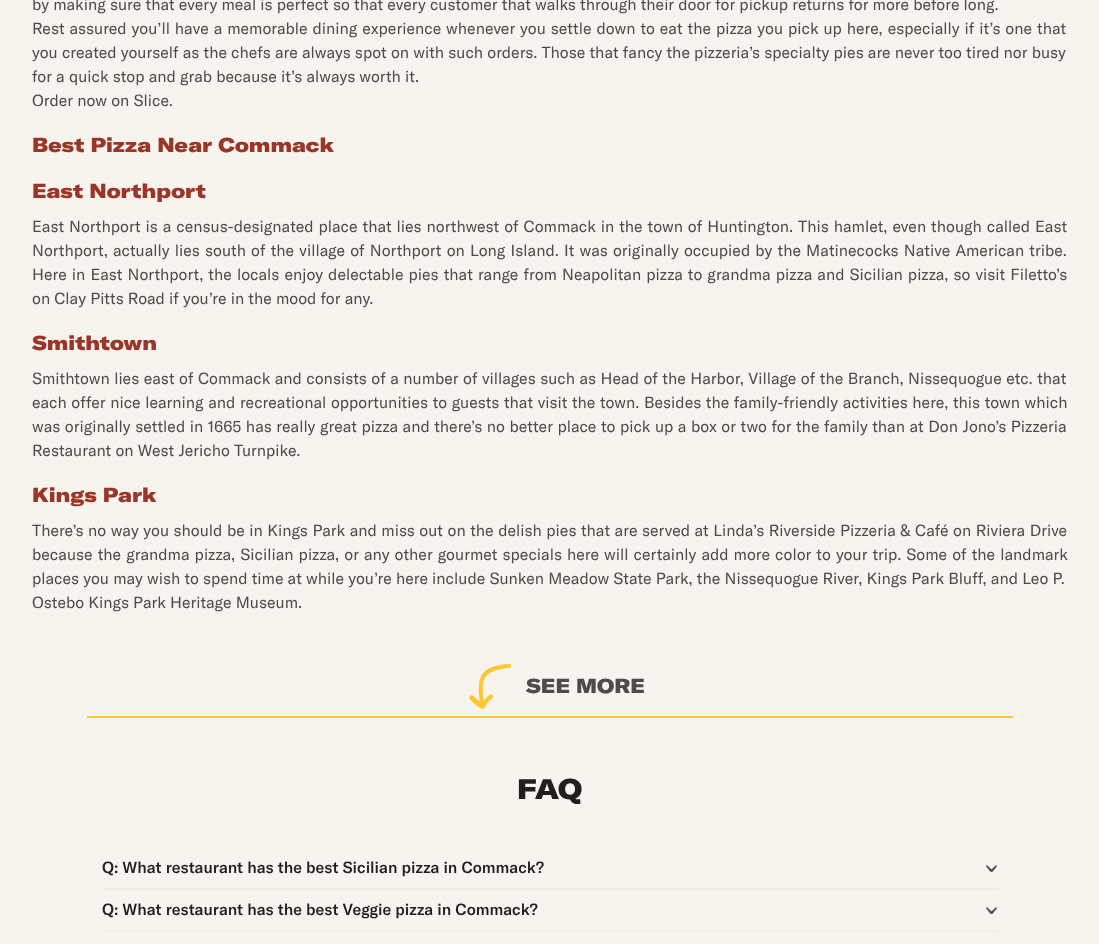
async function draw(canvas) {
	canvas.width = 1099;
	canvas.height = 944;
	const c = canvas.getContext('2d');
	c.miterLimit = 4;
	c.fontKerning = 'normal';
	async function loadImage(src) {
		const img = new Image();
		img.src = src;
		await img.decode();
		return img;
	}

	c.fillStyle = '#f7f4ef';
	c.fillRect(0, 0, 1099, 944);
	c.font = '16px GT America';
	c.fillStyle = '#4c4c4c';
	c.fillText('by making sure that every meal is perfect so that every customer that walks through their door for pickup returns for more before long.', 32, 10);
	c.wordSpacing = '0.75px';
	c.fillText('Rest assured you’ll have a memorable dining experience whenever you settle down to eat the pizza you pick up here, especially if it’s one that', 32, 34);
	c.wordSpacing = '0px';
	for (const [text, x, y] of [
		['you created yourself as the chefs are always spot on with such orders. Those that fancy the pizzeria’s specialty pies are never too tired nor busy', 32, 58],
		['for a quick stop and grab because it’s always worth it.', 32, 82],
		['Order now on Slice.', 32, 106],
	]) {
		c.fillText(text, x, y);
	}
	c.font = '900 20px GT America';
	c.fillStyle = '#9b3527';
	c.fillText('Best Pizza Near Commack', 32, 152);
	c.fillText('East Northport', 32, 198);
	c.wordSpacing = '0.75px';
	c.font = '16px GT America';
	c.fillStyle = '#4c4c4c';
	c.fillText('East Northport is a census-designated place that lies northwest of Commack in the town of Huntington. This hamlet, even though called East', 32, 232);
	c.wordSpacing = '1px';
	c.fillText('Northport, actually lies south of the village of Northport on Long Island. It was originally occupied by the Matinecocks Native American tribe.', 32, 256);
	c.wordSpacing = '0.9px';
	c.fillText('Here in East Northport, the locals enjoy delectable pies that range from Neapolitan pizza to grandma pizza and Sicilian pizza, so visit Filetto’s', 32, 280);
	c.wordSpacing = '0px';
	c.fillText('on Clay Pitts Road if you’re in the mood for any.', 32, 304);
	c.font = '900 20px GT America';
	c.fillStyle = '#9b3527';
	c.fillText('Smithtown', 32, 350);
	c.wordSpacing = '0.3px';
	c.font = '16px GT America';
	c.fillStyle = '#4c4c4c';
	c.fillText('Smithtown lies east of Commack and consists of a number of villages such as Head of the Harbor, Village of the Branch, Nissequogue etc. that', 32, 384);
	c.wordSpacing = '0.4px';
	c.fillText('each offer nice learning and recreational opportunities to guests that visit the town. Besides the family-friendly activities here, this town which', 32, 408);
	c.wordSpacing = '0.35px';
	c.fillText('was originally settled in 1665 has really great pizza and there’s no better place to pick up a box or two for the family than at Don Jono’s Pizzeria', 32, 432);
	c.wordSpacing = '0px';
	c.fillText('Restaurant on West Jericho Turnpike.', 32, 456);
	c.font = '900 20px GT America';
	c.fillStyle = '#9b3527';
	c.fillText('Kings Park', 32, 502);
	c.wordSpacing = '0.35px';
	c.font = '16px GT America';
	c.fillStyle = '#4c4c4c';
	c.fillText('There’s no way you should be in Kings Park and miss out on the delish pies that are served at Linda’s Riverside Pizzeria & Café on Riviera Drive', 32, 536);
	c.wordSpacing = '0.9px';
	c.fillText('because the grandma pizza, Sicilian pizza, or any other gourmet specials here will certainly add more color to your trip. Some of the landmark', 32, 560);
	c.wordSpacing = '0px';
	c.fillText('places you may wish to spend time at while you’re here include Sunken Meadow State Park, the Nissequogue River, Kings Park Bluff, and Leo P.', 32, 584);
	c.fillText('Ostebo Kings Park Heritage Museum.', 32, 608);
	c.beginPath();
	c.moveTo(491, 696.5);
	c.bezierCurveTo(487.5, 699, 484.5, 702.5, 483, 706.5);
	c.bezierCurveTo(481, 707.5, 472.5, 699.5, 471.5, 697.5);
	c.lineTo(482.5, 706.5);
	c.moveTo(509, 666);
	c.bezierCurveTo(509, 666, 492.5, 666.5, 485.5, 673.5);
	c.bezierCurveTo(476.5, 682.5, 483, 705.5, 483, 705.5);
	c.strokeStyle = '#fdc831';
	c.lineWidth = 4.2;
	c.lineCap = 'round';
	c.lineJoin = 'round';
	c.stroke();
	c.font = '900 20px GT America';
	c.fillText('SEE MORE', 526, 693);
	c.fillStyle = '#fdc831';
	c.fillRect(87, 716, 926, 2);
	c.font = '900 28px GT America';
	c.fillStyle = '#211e1e';
	c.fillText('FAQ', 517, 799);
	c.fillStyle = '#f0ede6';
	c.fillRect(102, 888, 896, 2);
	c.font = '500 16px GT America';
	c.fillStyle = '#211e1e';
	c.fillText('Q: What restaurant has the best Sicilian pizza in Commack?', 102, 873);
	c.drawImage(await loadImage('img1.png'), 986, 865, 11, 7);
	c.fillStyle = '#f0ede6';
	c.fillRect(102, 930, 896, 2);
	c.fillStyle = '#211e1e';
	c.fillText('Q: What restaurant has the best Veggie pizza in Commack?', 102, 915);
	c.drawImage(await loadImage('img1.png'), 986, 907, 11, 7);
}

draw(document.querySelector('canvas'));
